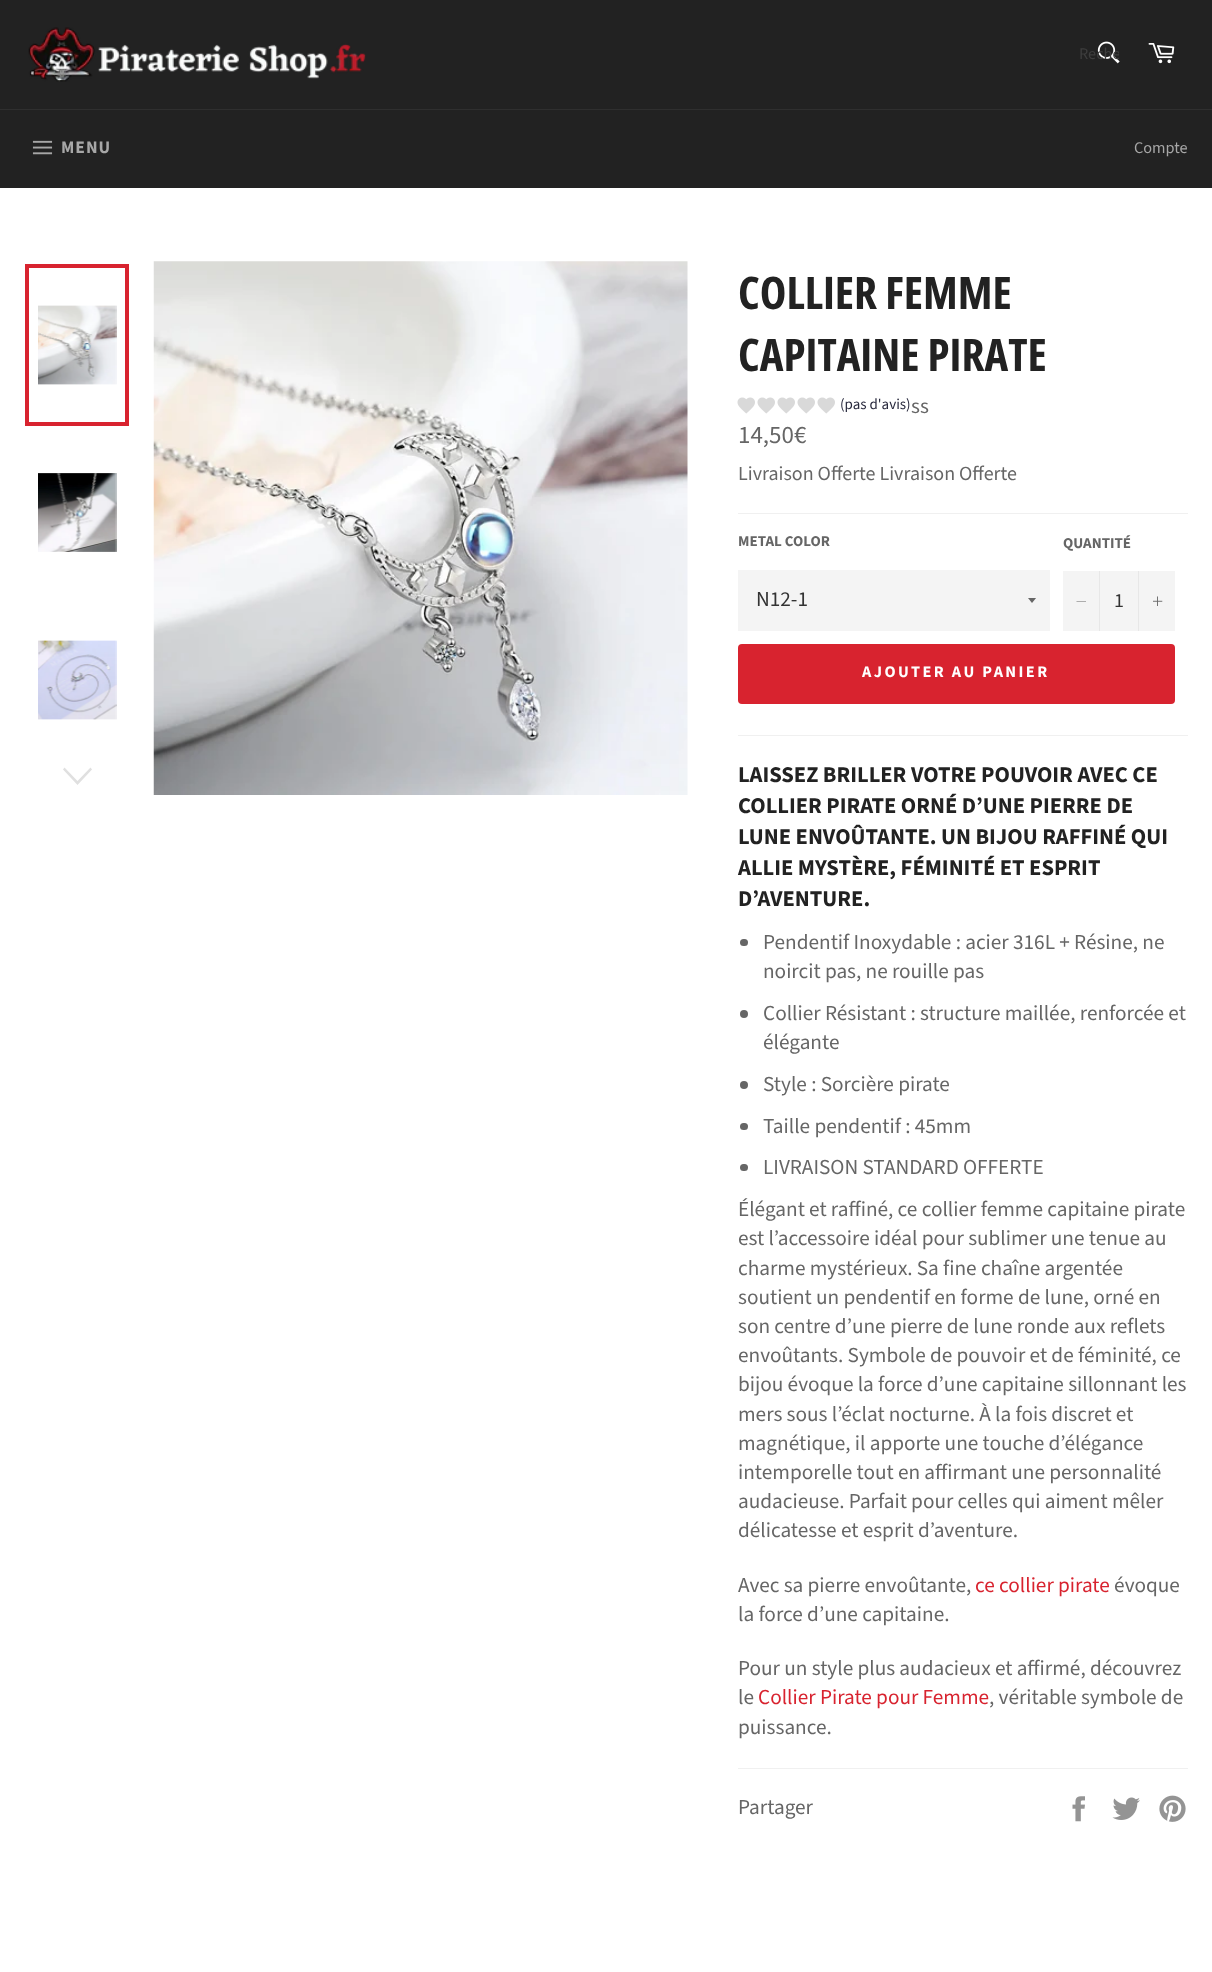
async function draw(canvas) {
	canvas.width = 1212;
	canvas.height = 1972;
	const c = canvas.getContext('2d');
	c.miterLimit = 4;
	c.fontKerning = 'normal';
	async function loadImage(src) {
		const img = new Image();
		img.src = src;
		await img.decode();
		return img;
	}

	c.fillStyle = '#222';
	c.fillRect(0, 0, 1212, 1972);
	c.drawImage(await loadImage('img1.png'), 28, 27, 338, 55);
	c.drawImage(await loadImage('img2.png'), 1097, 41, 23, 23);
	c.save();
	c.beginPath();
	c.rect(1079, 44, 40, 22);
	c.clip();
	c.font = '16.25px Source Sans Pro';
	c.fillStyle = '#3e3e3e';
	c.fillText('Reche', 1079, 59);
	c.restore();
	c.drawImage(await loadImage('img3.png'), 1148, 43, 27, 21);
	c.fillStyle = '#2f2f2f';
	c.fillRect(0, 109, 1212, 1);
	c.drawImage(await loadImage('img4.png'), 32, 140, 21, 15);
	c.letterSpacing = '1px';
	c.font = 'bold 17.5px Source Sans Pro';
	c.fillStyle = '#a7a7a7';
	c.fillText('MENU', 61, 153);
	c.letterSpacing = '0px';
	c.font = '16.25px Source Sans Pro';
	c.fillText('Compte', 1134, 153);
	c.fillStyle = '#fff';
	c.fillRect(0, 188, 1212, 1784);
	c.drawImage(await loadImage('img5.png'), 38, 305, 79, 80);
	c.strokeStyle = '#d8232f';
	c.lineWidth = 4;
	c.strokeRect(27, 266, 100, 158);
	c.drawImage(await loadImage('img6.png'), 38, 473, 79, 79);
	c.drawImage(await loadImage('img7.png'), 38, 640, 79, 80);
	c.fillStyle = '#e0e0e0';
	c.beginPath();
	c.moveTo(90.5, 767.5);
	c.lineTo(92, 769.5);
	c.lineTo(77.5, 785);
	c.lineTo(63, 769.5);
	c.lineTo(64.5, 767.5);
	c.lineTo(77.5, 781);
	c.closePath();
	c.fill();
	c.drawImage(await loadImage('img8.png'), 153, 261, 535, 534);
	c.font = 'bold 45px Open Sans Condensed';
	c.fillStyle = '#222';
	c.fillText('COLLIER FEMME', 738, 309);
	c.fillText('CAPITAINE PIRATE', 738, 371);
	c.drawImage(await loadImage('img9.png'), 737, 397, 18, 17);
	c.drawImage(await loadImage('img9.png'), 757, 397, 18, 17);
	c.drawImage(await loadImage('img9.png'), 777, 397, 18, 17);
	c.drawImage(await loadImage('img9.png'), 797, 397, 18, 17);
	c.drawImage(await loadImage('img9.png'), 817, 397, 18, 17);
	c.font = '15px Source Sans Pro';
	c.fillStyle = '#28293d';
	c.fillText('(pas d\'avis)', 840, 409);
	c.font = '21.25px Source Sans Pro';
	c.fillStyle = '#666';
	c.fillText('ss', 911, 413);
	c.font = '25px Source Sans Pro';
	c.fillText('14,50€', 738, 443);
	c.font = '20px Source Sans Pro';
	c.fillText('Livraison Offerte Livraison Offerte', 738, 480);
	c.fillStyle = '#f0f0f0';
	c.fillRect(738, 513, 450, 1);
	c.font = 'bold 15px Source Sans Pro';
	c.fillStyle = '#666';
	c.fillText('METAL COLOR', 738, 546);
	c.fillStyle = '#f4f4f4';
	c.fillRect(738, 570, 312, 61);
	c.save();
	c.beginPath();
	c.rect(1028, 598, 10, 6);
	c.clip();
	c.fillStyle = '#666';
	c.beginPath();
	c.moveTo(1027.5, 597.5);
	c.lineTo(1032, 603);
	c.lineTo(1036.5, 597.5);
	c.closePath();
	c.fill();
	c.restore();
	c.font = '21.25px Source Sans Pro';
	c.fillStyle = '#333';
	c.fillText('N12-1', 756, 606);
	c.font = 'bold 15px Source Sans Pro';
	c.fillStyle = '#666';
	c.fillText('QUANTITÉ', 1063, 548);
	c.fillStyle = '#f4f4f4';
	c.fillRect(1063, 571, 112, 60);
	c.fillStyle = '#e7e7e7';
	c.fillRect(1099, 571, 1, 60);
	c.fillStyle = '#666';
	c.beginPath();
	c.moveTo(1086, 601);
	c.lineTo(1086, 601.5);
	c.lineTo(1076.5, 601.5);
	c.lineTo(1076.5, 601);
	c.closePath();
	c.fill('evenodd');
	c.font = '20px Source Sans Pro';
	c.fillStyle = '#333';
	c.fillText('1', 1114, 607);
	c.fillStyle = '#e7e7e7';
	c.fillRect(1138, 571, 1, 60);
	c.drawImage(await loadImage('img10.png'), 1153, 596, 10, 10);
	c.fillStyle = '#d8232f';
	c.beginPath();
	c.roundRect(738, 644, 437, 60, 4);
	c.fill();
	c.letterSpacing = '2.4px';
	c.font = 'bold 16.25px Source Sans Pro';
	c.fillStyle = '#fff';
	c.fillText('AJOUTER AU PANIER', 862, 677);
	c.fillStyle = '#f0f0f0';
	c.fillRect(738, 735, 450, 1);
	c.letterSpacing = '0px';
	c.font = 'bold 22.5px Source Sans Pro';
	c.fillStyle = '#222';
	for (const [text, x, y] of [
		['LAISSEZ BRILLER VOTRE POUVOIR AVEC CE', 738, 782],
		['COLLIER PIRATE ORNÉ D’UNE PIERRE DE', 738, 813],
		['LUNE ENVOÛTANTE. UN BIJOU RAFFINÉ QUI', 738, 844],
		['ALLIE MYSTÈRE, FÉMINITÉ ET ESPRIT', 738, 875],
		['D’AVENTURE.', 738, 906],
	]) {
		c.fillText(text, x, y);
	}
	c.fillStyle = '#666';
	c.beginPath();
	c.roundRect(740, 939, 8, 7, 3.5);
	c.fill();
	c.font = '21.25px Source Sans Pro';
	c.fillText('Pendentif Inoxydable : acier 316L + Résine, ne', 763, 949);
	c.fillText('noircit pas, ne rouille pas', 763, 978);
	c.beginPath();
	c.arc(744, 1014, 4, 0, 2 * Math.PI);
	c.fill();
	c.fillText('Collier Résistant : structure maillée, renforcée et', 763, 1020);
	c.fillText('élégante', 763, 1049);
	c.beginPath();
	c.arc(744, 1085, 4, 0, 2 * Math.PI);
	c.fill();
	c.fillText('Style : Sorcière pirate', 763, 1091);
	c.beginPath();
	c.roundRect(740, 1123, 8, 7, 3.5);
	c.fill();
	c.fillText('Taille pendentif : 45mm', 763, 1133);
	c.beginPath();
	c.roundRect(740, 1164, 8, 7, 3.5);
	c.fill();
	for (const [text, x, y] of [
		['LIVRAISON STANDARD OFFERTE', 763, 1174],
		['Élégant et raffiné, ce collier femme capitaine pirate', 738, 1216],
		['est l’accessoire idéal pour sublimer une tenue au', 738, 1245],
		['charme mystérieux. Sa fine chaîne argentée', 738, 1275],
		['soutient un pendentif en forme de lune, orné en', 738, 1304],
		['son centre d’une pierre de lune ronde aux reflets', 738, 1333],
		['envoûtants. Symbole de pouvoir et de féminité, ce', 738, 1362],
		['bijou évoque la force d’une capitaine sillonnant les', 738, 1391],
		['mers sous l’éclat nocturne. À la fois discret et', 738, 1421],
		['magnétique, il apporte une touche d’élégance', 738, 1450],
		['intemporelle tout en affirmant une personnalité', 738, 1479],
		['audacieuse. Parfait pour celles qui aiment mêler', 738, 1508],
		['délicatesse et esprit d’aventure.', 738, 1537],
		['Avec sa pierre envoûtante,', 738, 1592],
	]) {
		c.fillText(text, x, y);
	}
	c.fillStyle = '#d8232f';
	c.fillText('ce collier pirate', 975, 1592);
	c.fillStyle = '#666';
	for (const [text, x, y] of [
		['évoque', 1114, 1592],
		['la force d’une capitaine.', 738, 1621],
		['Pour un style plus audacieux et affirmé, découvrez', 738, 1675],
		['le', 738, 1704],
	]) {
		c.fillText(text, x, y);
	}
	c.fillStyle = '#d8232f';
	c.fillText('Collier Pirate pour Femme', 758, 1704);
	c.fillStyle = '#666';
	c.fillText(', véritable symbole de', 989, 1704);
	c.fillText('puissance.', 738, 1734);
	c.fillStyle = '#f0f0f0';
	c.fillRect(738, 1768, 450, 1);
	c.fillStyle = '#666';
	c.fillText('Partager', 738, 1814);
	c.drawImage(await loadImage('img11.png'), 1072, 1796, 13, 26);
	c.drawImage(await loadImage('img12.png'), 1112, 1797, 28, 23);
	c.drawImage(await loadImage('img13.png'), 1159, 1795, 27, 27);
}

draw(document.querySelector('canvas'));
